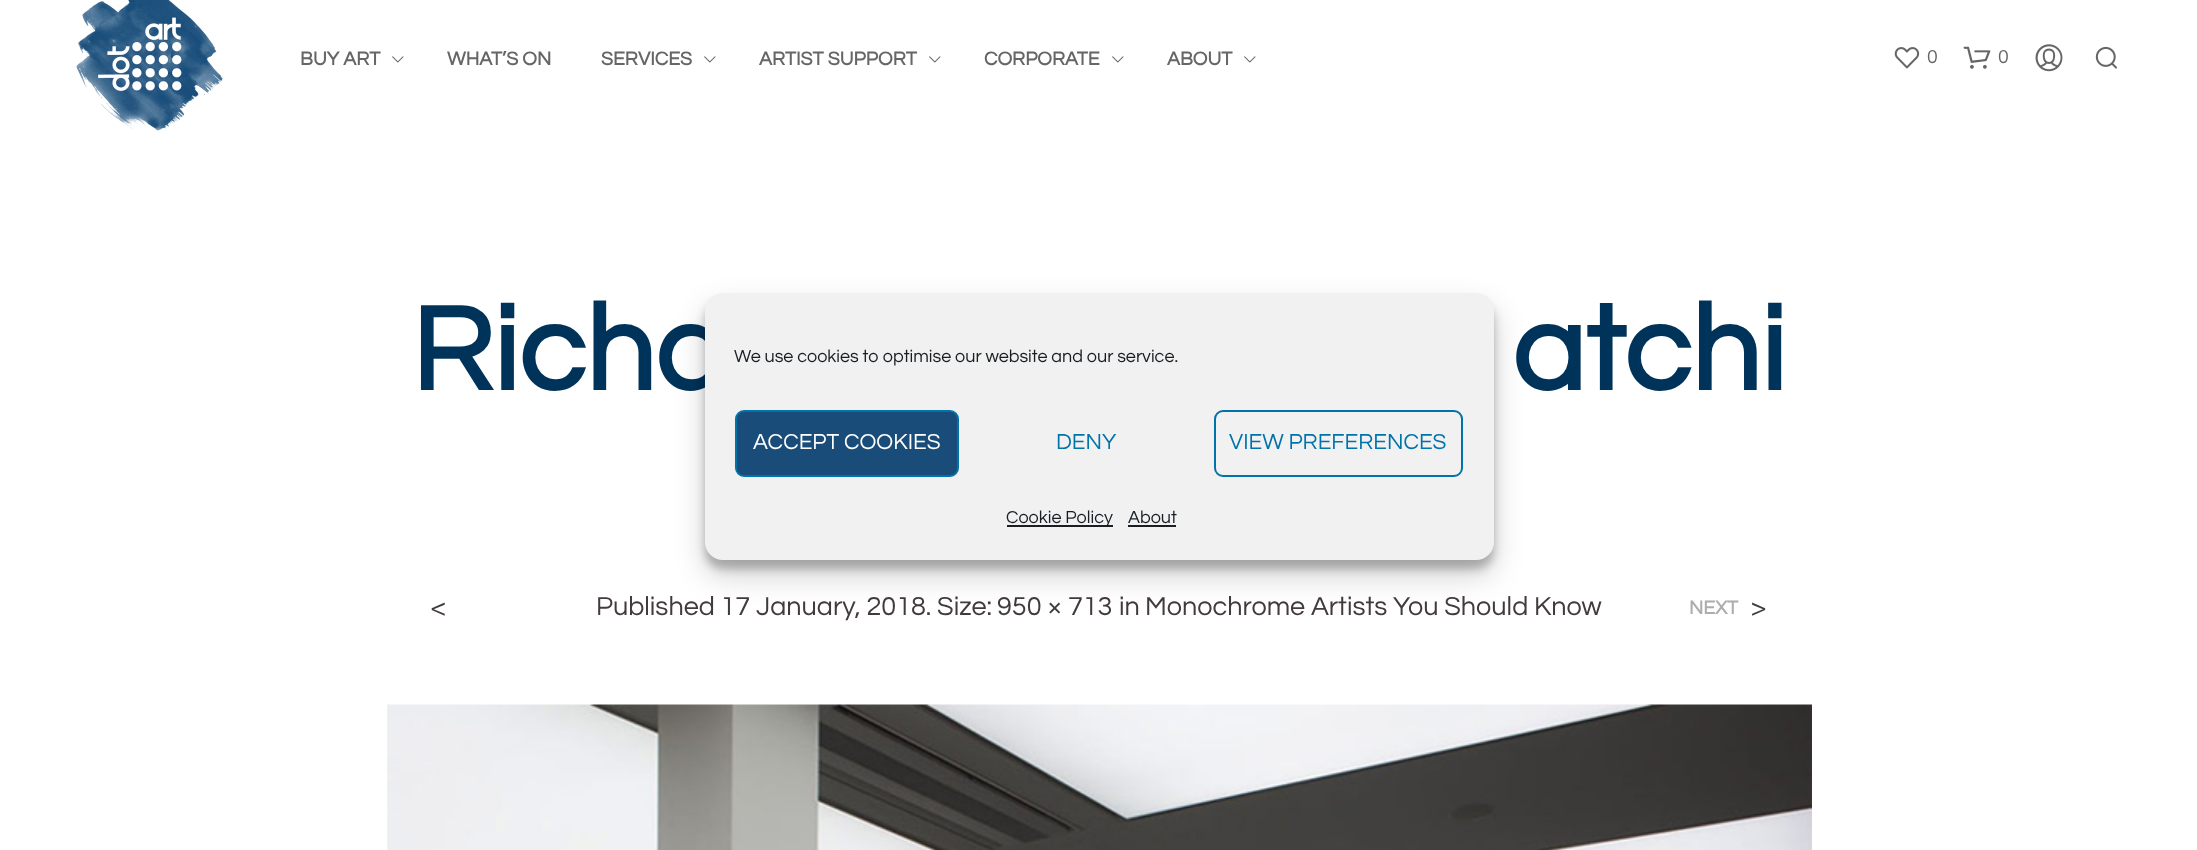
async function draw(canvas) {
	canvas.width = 2197;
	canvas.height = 850;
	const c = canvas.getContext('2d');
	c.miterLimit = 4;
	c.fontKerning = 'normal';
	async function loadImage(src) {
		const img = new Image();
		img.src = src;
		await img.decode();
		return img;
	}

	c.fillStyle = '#fff';
	c.fillRect(0, 0, 2197, 850);
	c.drawImage(await loadImage('img1.png'), 76, 0, 147, 131);
	c.font = 'bold 19.5px Questrial';
	c.fillStyle = '#666';
	c.fillText('BUY ART', 300, 65);
	c.drawImage(await loadImage('img2.png'), 392, 56, 12, 7);
	c.fillText('WHAT’S ON', 447, 65);
	c.fillText('SERVICES', 601, 65);
	c.drawImage(await loadImage('img2.png'), 704, 56, 12, 7);
	c.fillText('ARTIST SUPPORT', 759, 65);
	c.drawImage(await loadImage('img2.png'), 929, 56, 12, 7);
	c.fillText('CORPORATE', 984, 65);
	c.drawImage(await loadImage('img2.png'), 1112, 56, 12, 7);
	c.fillText('ABOUT', 1167, 65);
	c.drawImage(await loadImage('img2.png'), 1244, 56, 12, 7);
	c.drawImage(await loadImage('img3.png'), 1894, 47, 26, 22);
	c.font = '19.5px Questrial';
	c.fillText('0', 1927, 63);
	c.drawImage(await loadImage('img4.png'), 1963, 46, 28, 23);
	c.fillText('0', 1998, 63);
	c.drawImage(await loadImage('img5.png'), 2035, 44, 28, 28);
	c.drawImage(await loadImage('img6.png'), 2095, 46, 22, 23);
	c.font = 'bold 123px Questrial';
	c.fillStyle = '#00335a';
	c.fillText('Richa', 411, 390);
	c.fillText('atchi', 1512, 390);
	c.font = '27px Questrial';
	c.fillStyle = '#433b3b';
	for (const [text, x, y] of [
		['Published 17 January, 2018. Size:', 596, 615],
		['950 × 713', 997, 615],
		['in', 1119, 615],
		['Monochrome Artists You Should Know', 1145, 615],
		['<', 431, 616],
	]) {
		c.fillText(text, x, y);
	}
	c.font = 'bold 19.5px Questrial';
	c.fillStyle = '#adadad';
	c.fillText('NEXT', 1689, 614);
	c.font = '27px Questrial';
	c.fillStyle = '#433b3b';
	c.fillText('>', 1751, 616);
	c.drawImage(await loadImage('img7.png'), 387, 704, 1425, 146);
	c.fillStyle = '#0000003b';
	c.filter = 'blur(4.5px)';
	c.beginPath();
	c.roundRect(705, 302, 789, 267, 18);
	c.fill();
	c.filter = 'none';
	c.fillStyle = '#00000030';
	c.filter = 'blur(15px)';
	c.beginPath();
	c.roundRect(705, 308, 789, 267, 18);
	c.fill();
	c.filter = 'none';
	c.fillStyle = '#f1f1f1';
	c.beginPath();
	c.roundRect(705, 293, 789, 267, 18);
	c.fill();
	c.font = '18px Questrial';
	c.fillStyle = '#191e23';
	c.fillText('We use cookies to optimise our website and our service.', 734, 362);
	c.fillStyle = '#194c78';
	c.beginPath();
	c.roundRect(736, 411, 222, 65, 8);
	c.fill();
	c.strokeStyle = '#0073aa';
	c.lineWidth = 2;
	c.stroke();
	c.font = '22.5px Questrial';
	c.fillStyle = '#fff';
	c.fillText('ACCEPT COOKIES', 753, 449);
	c.fillStyle = '#0073aa';
	c.fillText('DENY', 1056, 449);
	c.beginPath();
	c.roundRect(1215, 411, 247, 65, 8);
	c.stroke();
	c.fillText('VIEW PREFERENCES', 1229, 449);
	c.fillStyle = '#191e23';
	c.fillRect(1007, 525, 106, 2);
	c.font = '18px Questrial';
	c.fillText('Cookie Policy', 1006, 523);
	c.fillText('About', 1128, 523);
	c.fillRect(1128, 525, 48, 2);
}

draw(document.querySelector('canvas'));
